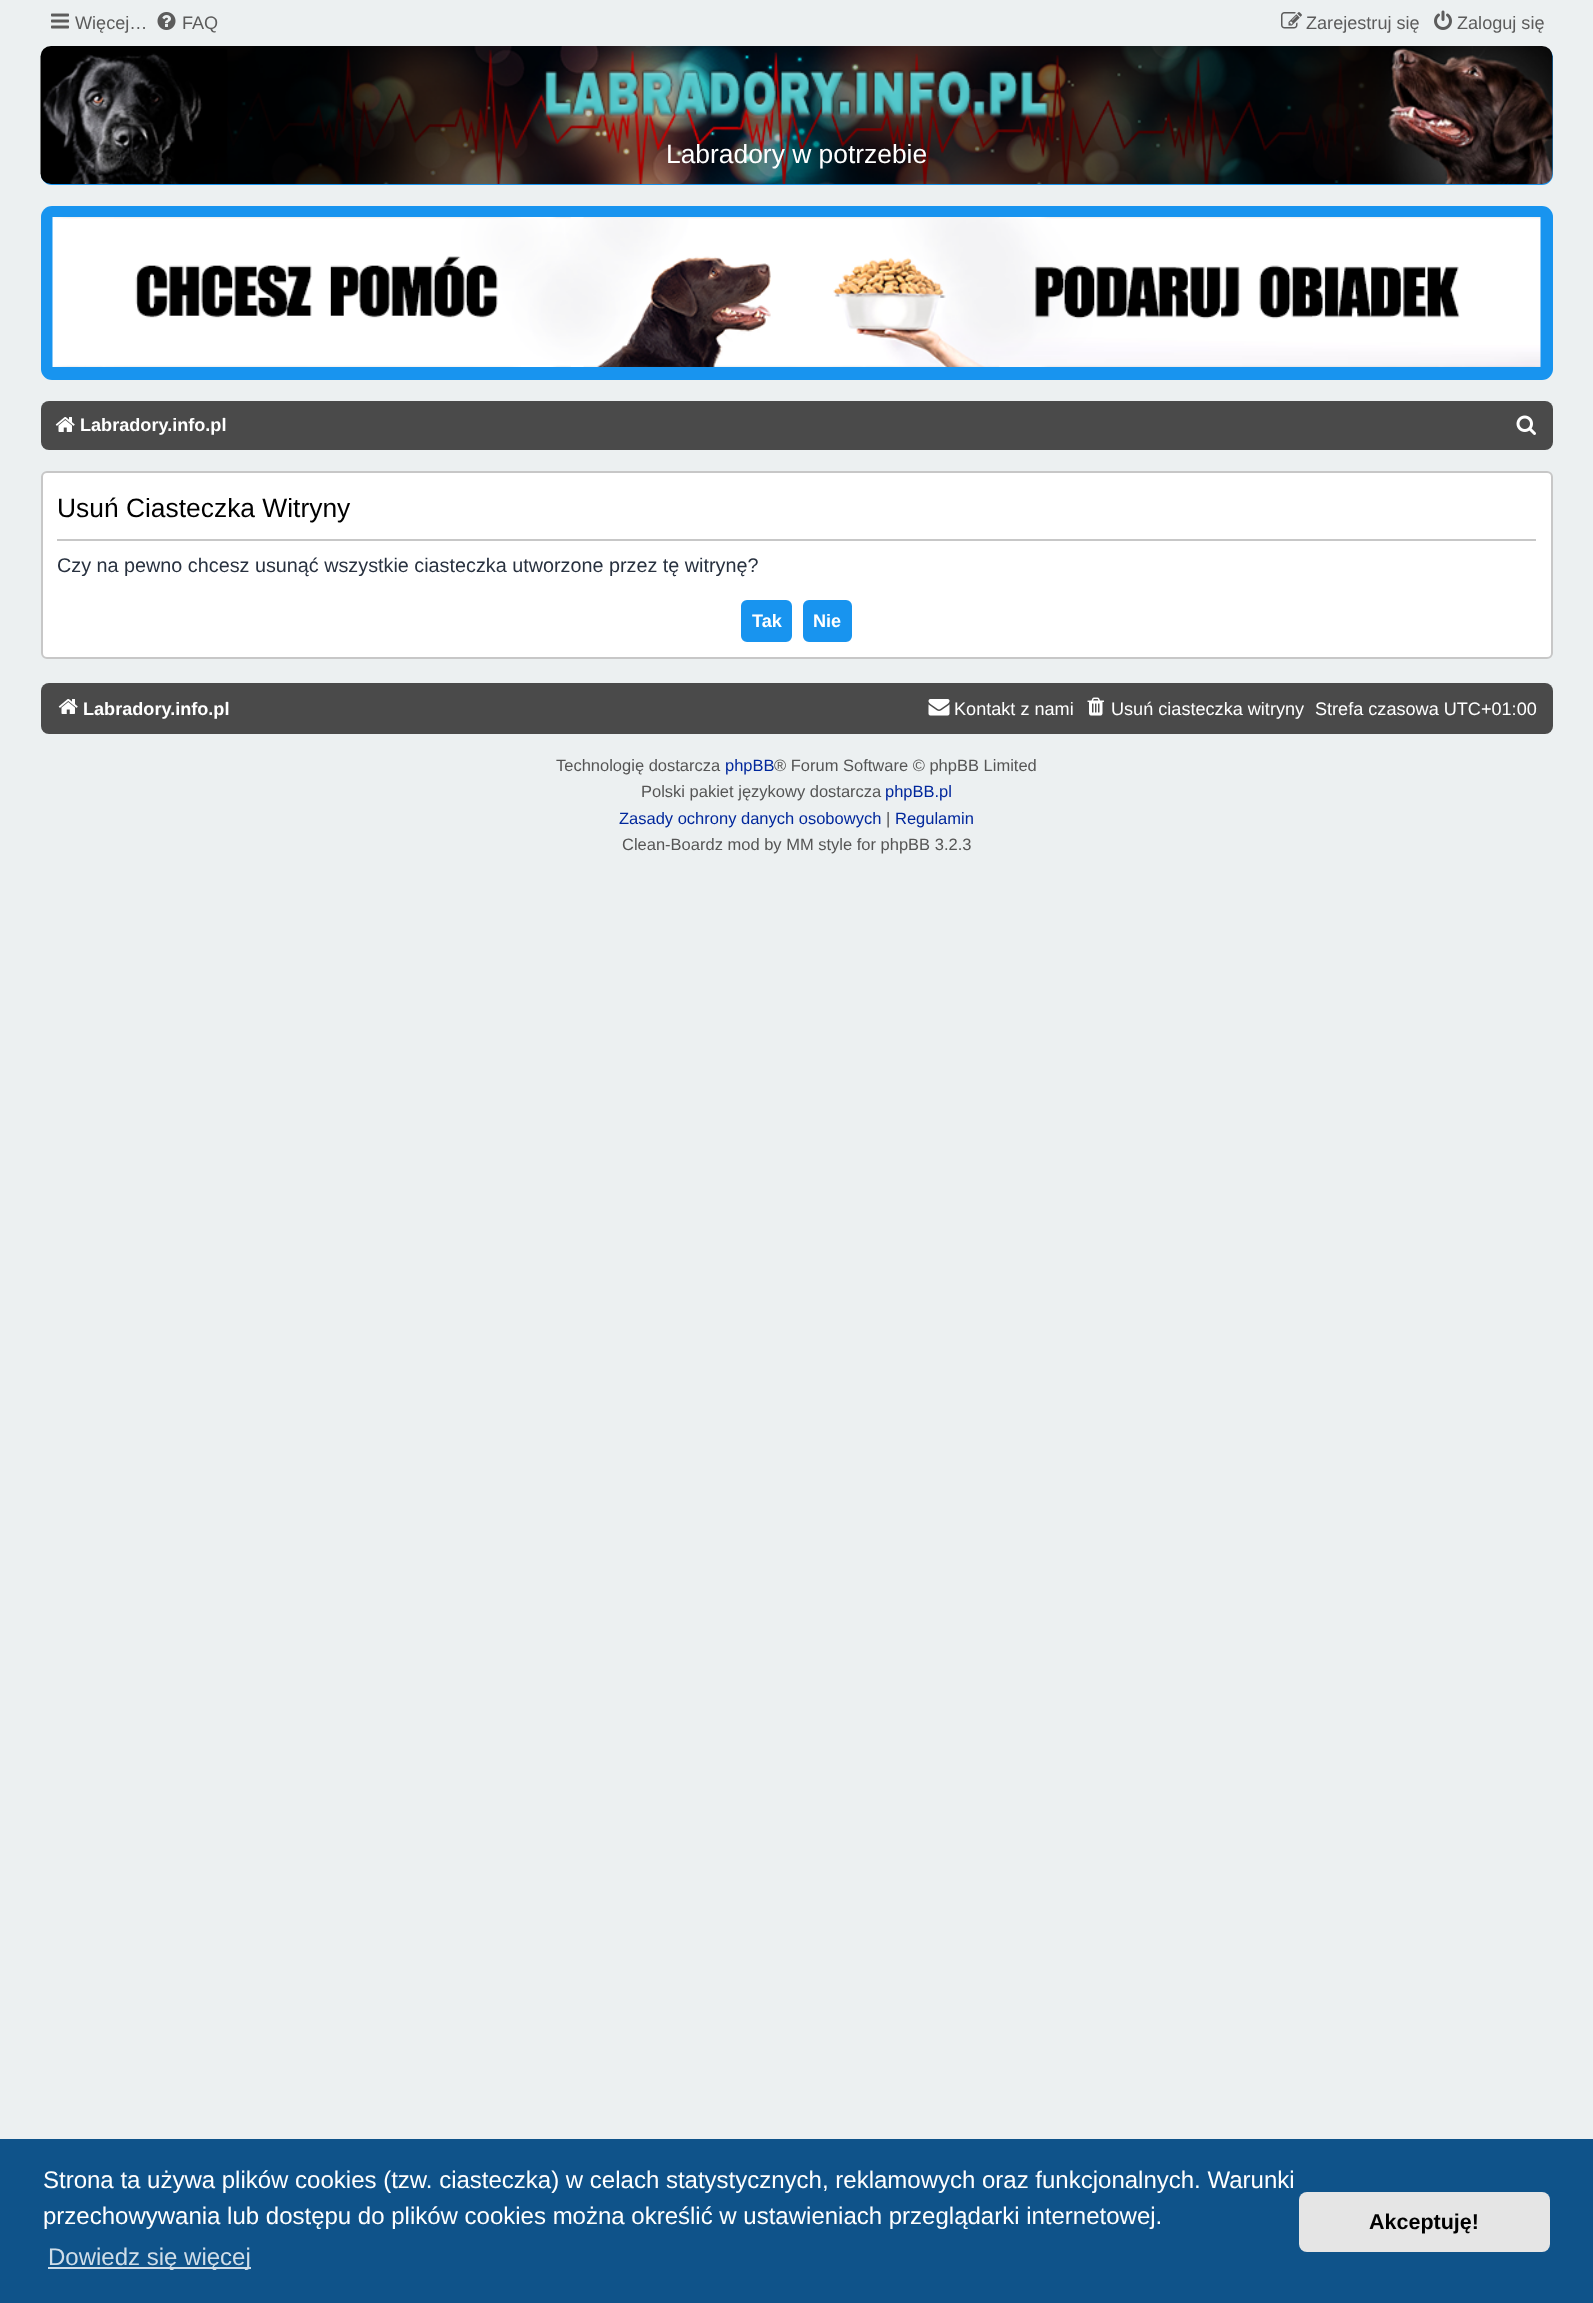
async function draw(canvas) {
	canvas.width = 1593;
	canvas.height = 2303;
	const c = canvas.getContext('2d');
	c.miterLimit = 4;
	c.fontKerning = 'normal';
	async function loadImage(src) {
		const img = new Image();
		img.src = src;
		await img.decode();
		return img;
	}

	c.fillStyle = '#ecf0f1';
	c.fillRect(0, 0, 1593, 2303);
	c.drawImage(await loadImage('img1.png'), 51, 13, 18, 16);
	c.font = '18.1px Liberation Sans';
	c.fillStyle = '#5c5c5c';
	c.fillText('Więcej…', 75, 29);
	c.drawImage(await loadImage('img2.png'), 157, 12, 19, 18);
	c.fillText('FAQ', 182, 29);
	c.drawImage(await loadImage('img3.png'), 1281, 12, 21, 17);
	c.fillText('Zarejestruj się', 1306, 29);
	c.drawImage(await loadImage('img4.png'), 1434, 10, 18, 20);
	c.fillText('Zaloguj się', 1457, 29);
	c.fillStyle = '#1894ef';
	c.beginPath();
	c.roundRect(41, 47, 1512, 138, 11);
	c.fill();
	c.drawImage(await loadImage('img5.png'), 40, 46, 1513, 138);
	c.drawImage(await loadImage('img6.png'), 543, 68, 506, 51);
	c.font = '26.4px Liberation Sans';
	c.fillStyle = '#fff';
	c.fillText('Labradory w potrzebie', 666, 163);
	c.fillStyle = '#1894ef';
	c.beginPath();
	c.roundRect(41, 206, 1512, 174, 11);
	c.fill();
	c.drawImage(await loadImage('img7.png'), 52, 217, 1489, 150);
	c.fillStyle = '#4a4a4a';
	c.beginPath();
	c.roundRect(41, 401, 1512, 49, 8);
	c.fill();
	c.drawImage(await loadImage('img8.png'), 55, 417, 20, 15);
	c.font = 'bold 18.1px Liberation Sans';
	c.fillStyle = '#fff';
	c.fillText('Labradory.info.pl', 80, 431);
	c.drawImage(await loadImage('img9.png'), 1516, 415, 20, 20);
	c.beginPath();
	c.roundRect(42, 472, 1510, 186, 5);
	c.fill();
	c.strokeStyle = '#c7c7c7';
	c.lineWidth = 2;
	c.stroke();
	c.fillStyle = '#c7c7c7';
	c.fillRect(57, 539, 1479, 2);
	c.font = '26.4px Liberation Sans';
	c.fillStyle = '#000';
	c.fillText('Usuń Ciasteczka Witryny', 57, 517);
	c.font = '19.8px Liberation Sans';
	c.fillStyle = '#28313f';
	c.fillText('Czy na pewno chcesz usunąć wszystkie ciasteczka utworzone przez tę witrynę?', 57, 572);
	c.fillStyle = '#1894ef';
	c.beginPath();
	c.roundRect(742, 601, 49, 40, 5);
	c.fill();
	c.strokeStyle = '#1894ef';
	c.stroke();
	c.font = 'bold 18.1px Liberation Sans';
	c.fillStyle = '#fff';
	c.fillText('Tak', 752, 627);
	c.fillStyle = '#1894ef';
	c.beginPath();
	c.roundRect(804, 601, 47, 40, 5);
	c.fill();
	c.stroke();
	c.fillStyle = '#fff';
	c.fillText('Nie', 813, 627);
	c.fillStyle = '#4a4a4a';
	c.beginPath();
	c.roundRect(41, 683, 1512, 51, 8);
	c.fill();
	c.drawImage(await loadImage('img8.png'), 58, 699, 20, 15);
	c.fillStyle = '#fff';
	c.fillText('Labradory.info.pl', 83, 715);
	c.drawImage(await loadImage('img10.png'), 928, 699, 22, 17);
	c.font = '18.1px Liberation Sans';
	c.fillText('Kontakt z nami', 954, 715);
	c.drawImage(await loadImage('img11.png'), 1087, 697, 17, 19);
	c.fillText('Usuń ciasteczka witryny', 1111, 715);
	c.fillText('Strefa czasowa UTC+01:00', 1315, 715);
	c.font = '16.5px Liberation Sans';
	c.fillStyle = '#555';
	c.fillText('Technologię dostarcza', 556, 771);
	c.fillStyle = '#00279c';
	c.fillText('phpBB', 725, 771);
	c.fillStyle = '#555';
	c.fillText('® Forum Software © phpBB Limited', 774, 771);
	c.fillText('Polski pakiet językowy dostarcza', 641, 797);
	c.fillStyle = '#00279c';
	c.fillText('phpBB.pl', 885, 797);
	c.fillText('Zasady ochrony danych osobowych', 619, 824);
	c.fillStyle = '#555';
	c.fillText('|', 886, 824);
	c.fillStyle = '#00279c';
	c.fillText('Regulamin', 895, 824);
	c.fillStyle = '#555';
	c.fillText('Clean-Boardz mod by MM style for phpBB 3.2.3', 622, 850);
	c.fillStyle = '#0f538a';
	c.fillRect(0, 2139, 1593, 164);
	c.font = '24px Liberation Sans';
	c.fillStyle = '#fff';
	c.fillText('Strona ta używa plików cookies (tzw. ciasteczka) w celach statystycznych, reklamowych oraz funkcjonalnych. Warunki', 43, 2188);
	c.fillText('przechowywania lub dostępu do plików cookies można określić w ustawieniach przeglądarki internetowej.', 43, 2224);
	c.fillStyle = '#cfdde8';
	c.fillRect(48, 2267, 203, 2);
	c.fillText('Dowiedz się więcej', 48, 2265);
	c.fillStyle = '#e5e5e5';
	c.beginPath();
	c.roundRect(1299, 2192, 251, 60, 8);
	c.fill();
	c.font = 'bold 21.5px Liberation Sans';
	c.fillStyle = '#000';
	c.fillText('Akceptuję!', 1369, 2229);
}

draw(document.querySelector('canvas'));
